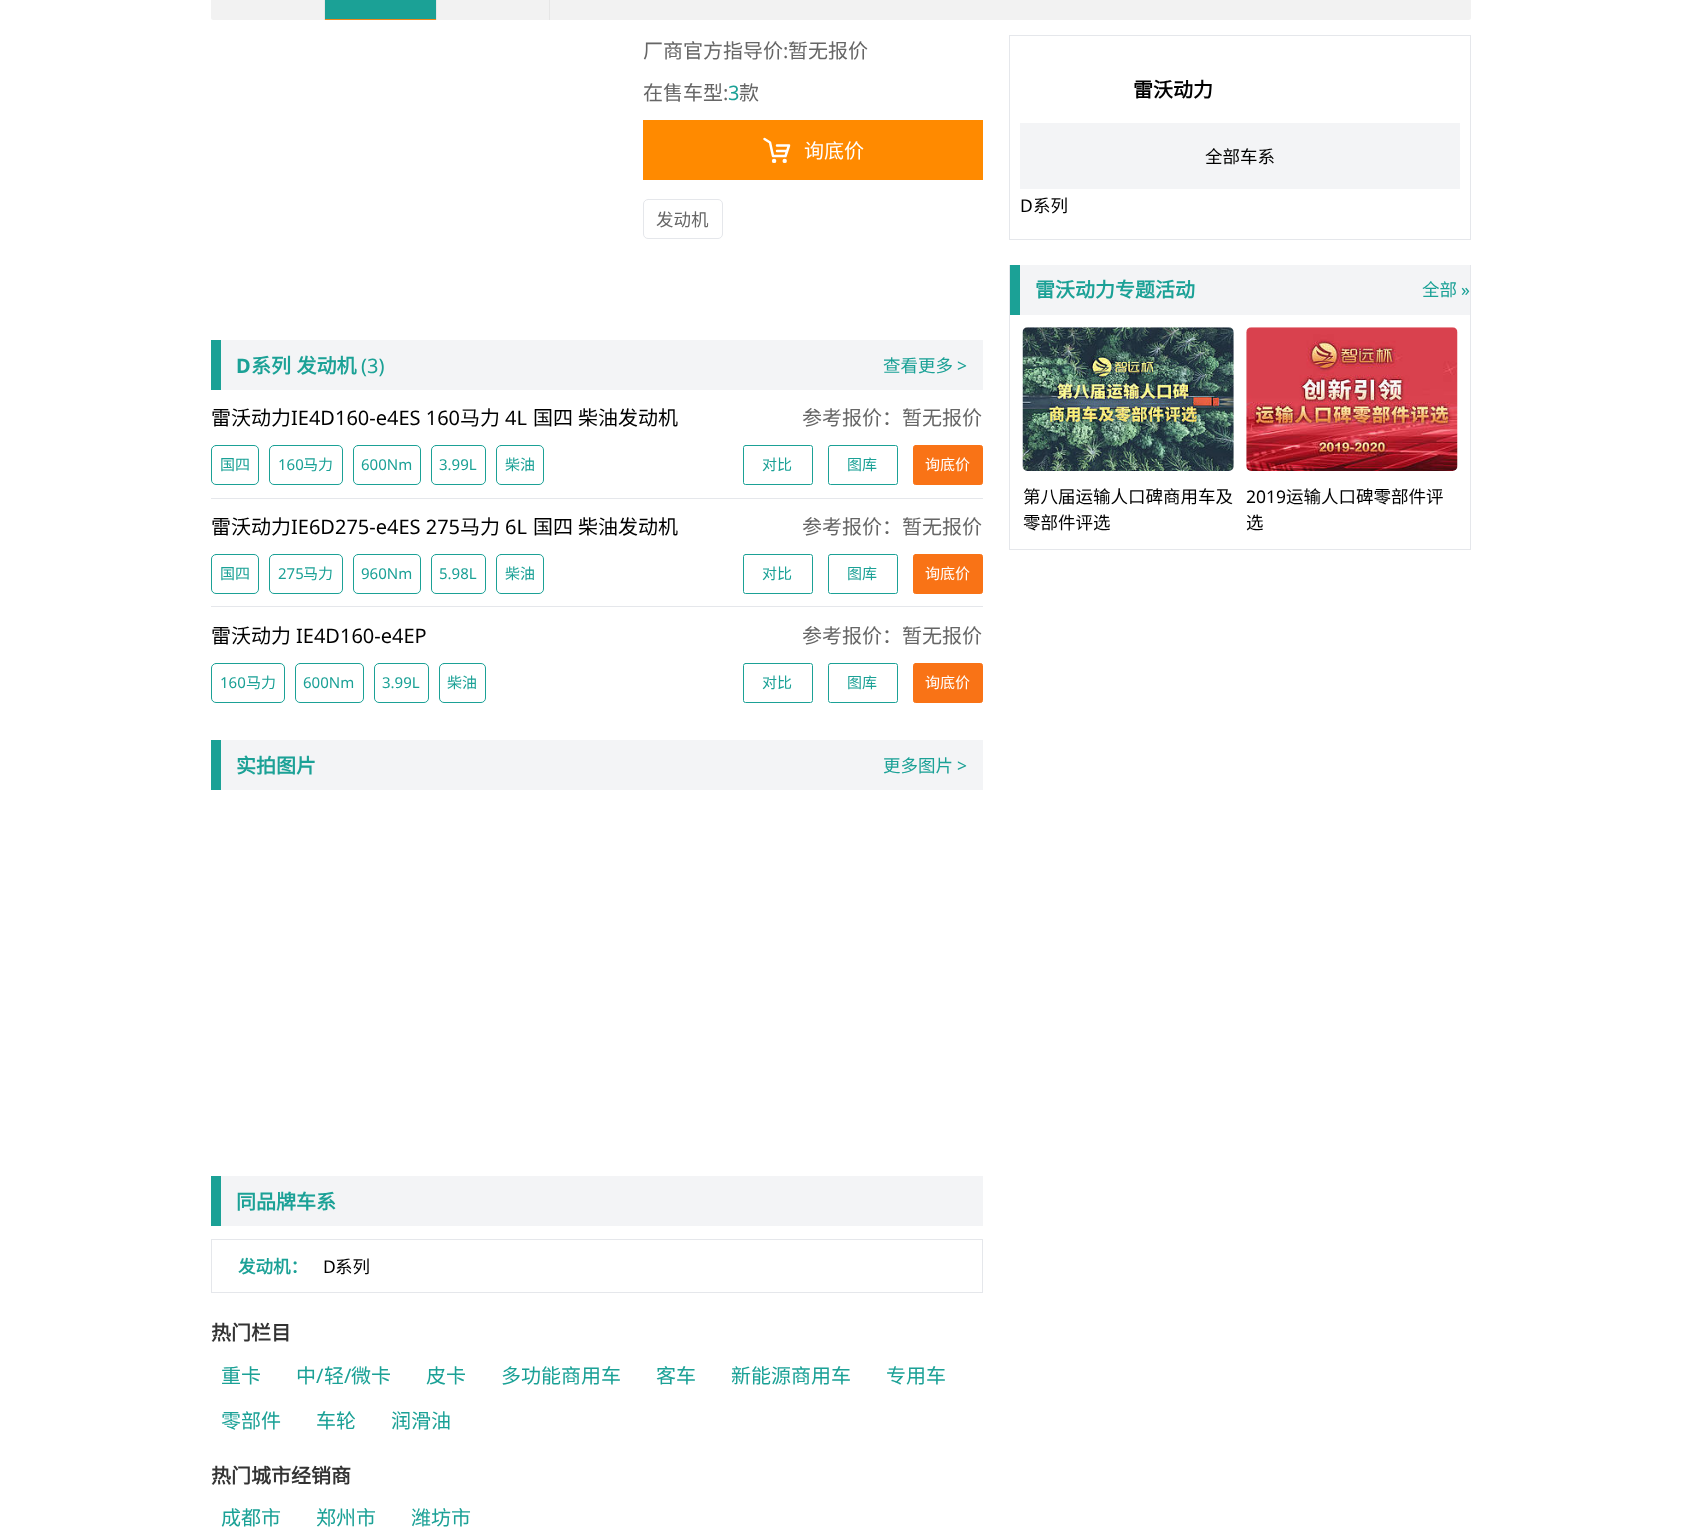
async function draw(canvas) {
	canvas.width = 1682;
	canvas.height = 1530;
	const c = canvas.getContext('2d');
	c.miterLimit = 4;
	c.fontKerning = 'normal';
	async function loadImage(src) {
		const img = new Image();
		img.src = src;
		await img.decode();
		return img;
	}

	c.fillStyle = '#fff';
	c.fillRect(0, 0, 1682, 1530);
	c.fillStyle = '#f2f2f2';
	c.beginPath();
	c.roundRect(211, -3, 1260, 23, 2.5);
	c.fill();
	for (const [x, y, w, h, color] of [
		[324, 0, 1, 20, '#e6e6e6'],
		[325, 0, 111, 19, '#1ba196'],
		[325, 19, 111, 1, '#f0871b'],
		[436, 0, 1, 20, '#e6e6e6'],
		[549, 0, 1, 20, '#e6e6e6'],
	]) {
		c.fillStyle = color;
		c.fillRect(x, y, w, h);
	}
	c.font = '20px Noto Sans CJK SC';
	c.fillStyle = '#666';
	c.fillText('厂商官方指导价', 643, 58);
	c.font = '20px Noto Sans';
	c.fillText(':', 783, 58);
	c.font = '20px Noto Sans CJK SC';
	c.fillText('暂无报价', 788, 58);
	c.fillText('在售车型', 643, 100);
	c.font = '20px Noto Sans';
	c.fillText(':', 723, 100);
	c.fillStyle = '#1ba196';
	c.fillText('3', 728, 100);
	c.font = '20px Noto Sans CJK SC';
	c.fillStyle = '#666';
	c.fillText('款', 739, 100);
	c.fillStyle = '#ff8a00';
	c.fillRect(643, 120, 340, 60);
	c.fillStyle = '#fff';
	c.beginPath();
	c.arc(774.1, 160.9, 2.2, 0, 2 * Math.PI);
	c.fill();
	c.beginPath();
	c.arc(784.7, 160.9, 2.2, 0, 2 * Math.PI);
	c.fill();
	c.beginPath();
	c.moveTo(764.5, 139);
	c.lineTo(770, 142.5);
	c.lineTo(773, 156);
	c.lineTo(785.5, 156);
	c.lineTo(789, 145.5);
	c.lineTo(777, 145.5);
	c.moveTo(777, 151);
	c.lineTo(787, 151);
	c.strokeStyle = '#fff';
	c.lineWidth = 2.5;
	c.lineCap = 'round';
	c.lineJoin = 'round';
	c.stroke();
	c.fillText('询底价', 804, 158);
	c.beginPath();
	c.roundRect(643.5, 199.5, 79, 39, 4.5);
	c.strokeStyle = '#e5e7eb';
	c.lineWidth = 1;
	c.lineJoin = 'miter';
	c.stroke();
	c.font = '17.5px Noto Sans CJK SC';
	c.fillStyle = '#666';
	c.fillText('发动机', 656, 226);
	c.fillStyle = '#f3f4f6';
	c.fillRect(221, 340, 762, 50);
	c.fillStyle = '#1ba196';
	c.fillRect(211, 340, 10, 50);
	c.font = 'bold 20px Noto Sans';
	c.fillText('D', 236, 373);
	c.wordSpacing = '1px';
	c.font = 'bold 20px Noto Sans CJK SC';
	c.fillText('系列 发动机', 251, 373);
	c.wordSpacing = '0px';
	c.font = '20px Noto Sans';
	c.fillText('(3)', 361, 373);
	c.font = '17.5px Noto Sans CJK SC';
	c.fillText('查看更多', 883, 372);
	c.font = '17.5px Noto Sans';
	c.fillText('>', 957, 372);
	c.font = '20px Noto Sans CJK SC';
	c.fillStyle = '#000';
	c.fillText('雷沃动力', 211, 425);
	c.font = '20px Noto Sans';
	c.fillText('IE4D160-e4ES 160', 291, 425);
	c.font = '20px Noto Sans CJK SC';
	c.fillText('马力', 460, 425);
	c.font = '20px Noto Sans';
	c.fillText('4L', 505, 425);
	c.font = '20px Noto Sans CJK SC';
	c.fillText('国四', 533, 425);
	c.fillText('柴油发动机', 578, 425);
	c.fillStyle = '#666';
	c.fillText('参考报价：暂无报价', 802, 425);
	c.beginPath();
	c.roundRect(211.5, 445.5, 47, 39, 4.5);
	c.strokeStyle = '#1ba196';
	c.stroke();
	c.font = '15px Noto Sans CJK SC';
	c.fillStyle = '#1ba196';
	c.fillText('国四', 220, 470);
	c.beginPath();
	c.roundRect(269.5, 445.5, 73, 39, 4.5);
	c.stroke();
	c.font = '15px Noto Sans';
	c.fillText('160', 278, 470);
	c.font = '15px Noto Sans CJK SC';
	c.fillText('马力', 303, 470);
	c.beginPath();
	c.roundRect(353.5, 445.5, 67, 39, 4.5);
	c.stroke();
	c.font = '15px Noto Sans';
	c.fillText('600Nm', 361, 470);
	c.beginPath();
	c.roundRect(431.5, 445.5, 54, 39, 4.5);
	c.stroke();
	c.fillText('3.99L', 439, 470);
	c.beginPath();
	c.roundRect(496.5, 445.5, 47, 39, 4.5);
	c.stroke();
	c.font = '15px Noto Sans CJK SC';
	c.fillText('柴油', 505, 470);
	c.beginPath();
	c.roundRect(743.5, 445.5, 69, 39, 2);
	c.stroke();
	c.fillText('对比', 762, 470);
	c.beginPath();
	c.roundRect(828.5, 445.5, 69, 39, 2);
	c.stroke();
	c.fillText('图库', 847, 470);
	c.fillStyle = '#f97316';
	c.beginPath();
	c.roundRect(913.5, 445.5, 69, 39, 2);
	c.fill();
	c.strokeStyle = '#f97316';
	c.stroke();
	c.fillStyle = '#fff';
	c.fillText('询底价', 925, 470);
	c.fillStyle = '#e5e7eb';
	c.fillRect(211, 498, 772, 1);
	c.font = '20px Noto Sans CJK SC';
	c.fillStyle = '#000';
	c.fillText('雷沃动力', 211, 534);
	c.font = '20px Noto Sans';
	c.fillText('IE6D275-e4ES 275', 291, 534);
	c.font = '20px Noto Sans CJK SC';
	c.fillText('马力', 460, 534);
	c.font = '20px Noto Sans';
	c.fillText('6L', 505, 534);
	c.font = '20px Noto Sans CJK SC';
	c.fillText('国四', 533, 534);
	c.fillText('柴油发动机', 578, 534);
	c.fillStyle = '#666';
	c.fillText('参考报价：暂无报价', 802, 534);
	c.beginPath();
	c.roundRect(211.5, 554.5, 47, 39, 4.5);
	c.strokeStyle = '#1ba196';
	c.stroke();
	c.font = '15px Noto Sans CJK SC';
	c.fillStyle = '#1ba196';
	c.fillText('国四', 220, 579);
	c.beginPath();
	c.roundRect(269.5, 554.5, 73, 39, 4.5);
	c.stroke();
	c.font = '15px Noto Sans';
	c.fillText('275', 278, 579);
	c.font = '15px Noto Sans CJK SC';
	c.fillText('马力', 303, 579);
	c.beginPath();
	c.roundRect(353.5, 554.5, 67, 39, 4.5);
	c.stroke();
	c.font = '15px Noto Sans';
	c.fillText('960Nm', 361, 579);
	c.beginPath();
	c.roundRect(431.5, 554.5, 54, 39, 4.5);
	c.stroke();
	c.fillText('5.98L', 439, 579);
	c.beginPath();
	c.roundRect(496.5, 554.5, 47, 39, 4.5);
	c.stroke();
	c.font = '15px Noto Sans CJK SC';
	c.fillText('柴油', 505, 579);
	c.beginPath();
	c.roundRect(743.5, 554.5, 69, 39, 2);
	c.stroke();
	c.fillText('对比', 762, 579);
	c.beginPath();
	c.roundRect(828.5, 554.5, 69, 39, 2);
	c.stroke();
	c.fillText('图库', 847, 579);
	c.fillStyle = '#f97316';
	c.beginPath();
	c.roundRect(913.5, 554.5, 69, 39, 2);
	c.fill();
	c.strokeStyle = '#f97316';
	c.stroke();
	c.fillStyle = '#fff';
	c.fillText('询底价', 925, 579);
	c.fillStyle = '#e5e7eb';
	c.fillRect(211, 606, 772, 1);
	c.font = '20px Noto Sans CJK SC';
	c.fillStyle = '#000';
	c.fillText('雷沃动力', 211, 643);
	c.font = '20px Noto Sans';
	c.fillText('IE4D160-e4EP', 296, 643);
	c.font = '20px Noto Sans CJK SC';
	c.fillStyle = '#666';
	c.fillText('参考报价：暂无报价', 802, 643);
	c.beginPath();
	c.roundRect(211.5, 663.5, 73, 39, 4.5);
	c.strokeStyle = '#1ba196';
	c.stroke();
	c.font = '15px Noto Sans';
	c.fillStyle = '#1ba196';
	c.fillText('160', 220, 688);
	c.font = '15px Noto Sans CJK SC';
	c.fillText('马力', 246, 688);
	c.beginPath();
	c.roundRect(295.5, 663.5, 68, 39, 4.5);
	c.stroke();
	c.font = '15px Noto Sans';
	c.fillText('600Nm', 303, 688);
	c.beginPath();
	c.roundRect(374.5, 663.5, 54, 39, 4.5);
	c.stroke();
	c.fillText('3.99L', 382, 688);
	c.beginPath();
	c.roundRect(439.5, 663.5, 46, 39, 4.5);
	c.stroke();
	c.font = '15px Noto Sans CJK SC';
	c.fillText('柴油', 447, 688);
	c.beginPath();
	c.roundRect(743.5, 663.5, 69, 39, 2);
	c.stroke();
	c.fillText('对比', 762, 688);
	c.beginPath();
	c.roundRect(828.5, 663.5, 69, 39, 2);
	c.stroke();
	c.fillText('图库', 847, 688);
	c.fillStyle = '#f97316';
	c.beginPath();
	c.roundRect(913.5, 663.5, 69, 39, 2);
	c.fill();
	c.strokeStyle = '#f97316';
	c.stroke();
	c.fillStyle = '#fff';
	c.fillText('询底价', 925, 688);
	c.fillStyle = '#f3f4f6';
	c.fillRect(221, 740, 762, 50);
	c.fillStyle = '#1ba196';
	c.fillRect(211, 740, 10, 50);
	c.font = 'bold 20px Noto Sans CJK SC';
	c.fillText('实拍图片', 236, 773);
	c.font = '17.5px Noto Sans CJK SC';
	c.fillText('更多图片', 883, 772);
	c.font = '17.5px Noto Sans';
	c.fillText('>', 957, 772);
	c.fillStyle = '#f3f4f6';
	c.fillRect(221, 1176, 762, 50);
	c.fillStyle = '#1ba196';
	c.fillRect(211, 1176, 10, 50);
	c.font = 'bold 20px Noto Sans CJK SC';
	c.fillText('同品牌车系', 236, 1209);
	c.strokeStyle = '#e5e7eb';
	c.strokeRect(211.5, 1239.5, 771, 53);
	c.font = 'bold 17.5px Noto Sans CJK SC';
	c.fillText('发动机：', 238, 1273);
	c.font = '17.5px Noto Sans';
	c.fillStyle = '#000';
	c.fillText('D', 323, 1273);
	c.font = '17.5px Noto Sans CJK SC';
	c.fillText('系列', 335, 1273);
	c.font = 'bold 20px Noto Sans CJK SC';
	c.fillStyle = '#333';
	c.fillText('热门栏目', 211, 1340);
	c.font = '20px Noto Sans CJK SC';
	c.fillStyle = '#1ba196';
	c.fillText('重卡', 221, 1383);
	c.fillText('中', 296, 1383);
	c.font = '20px Noto Sans';
	c.fillText('/', 316, 1383);
	c.font = '20px Noto Sans CJK SC';
	c.fillText('轻', 324, 1383);
	c.font = '20px Noto Sans';
	c.fillText('/', 344, 1383);
	c.font = '20px Noto Sans CJK SC';
	for (const [text, x, y] of [
		['微卡', 351, 1383],
		['皮卡', 426, 1383],
		['多功能商用车', 501, 1383],
		['客车', 656, 1383],
		['新能源商用车', 731, 1383],
		['专用车', 886, 1383],
		['零部件', 221, 1428],
		['车轮', 316, 1428],
		['润滑油', 391, 1428],
	]) {
		c.fillText(text, x, y);
	}
	c.font = 'bold 20px Noto Sans CJK SC';
	c.fillStyle = '#333';
	c.fillText('热门城市经销商', 211, 1483);
	c.font = '20px Noto Sans CJK SC';
	c.fillStyle = '#1ba196';
	for (const [text, x, y] of [
		['成都市', 221, 1525],
		['郑州市', 316, 1525],
		['潍坊市', 411, 1525],
	]) {
		c.fillText(text, x, y);
	}
	c.strokeRect(1009.5, 35.5, 461, 204);
	c.font = 'bold 20px Noto Sans CJK SC';
	c.fillStyle = '#000';
	c.fillText('雷沃动力', 1133, 97);
	c.fillStyle = '#f3f4f6';
	c.fillRect(1020, 123, 440, 66);
	c.font = '17.5px Noto Sans CJK SC';
	c.fillStyle = '#000';
	c.fillText('全部车系', 1205, 163);
	c.font = '17.5px Noto Sans';
	c.fillText('D', 1020, 212);
	c.font = '17.5px Noto Sans CJK SC';
	c.fillText('系列', 1033, 212);
	for (const [x, y, w, h, color] of [
		[1470, 265, 1, 285, '#e5e7eb'],
		[1009, 549, 462, 1, '#e5e7eb'],
		[1009, 265, 1, 285, '#e5e7eb'],
		[1020, 265, 450, 50, '#f3f4f6'],
		[1010, 265, 10, 50, '#1ba196'],
	]) {
		c.fillStyle = color;
		c.fillRect(x, y, w, h);
	}
	c.font = 'bold 20px Noto Sans CJK SC';
	c.fillText('雷沃动力专题活动', 1035, 297);
	c.font = '17.5px Noto Sans CJK SC';
	c.fillText('全部', 1422, 296);
	c.font = '17.5px Noto Sans';
	c.fillText('»', 1461, 296);
	c.drawImage(await loadImage('img1.png'), 1022, 327, 212, 144);
	c.font = '17.5px Noto Sans CJK SC';
	c.fillStyle = '#000';
	c.fillText('第八届运输人口碑商用车及', 1023, 503);
	c.fillText('零部件评选', 1023, 529);
	c.drawImage(await loadImage('img2.png'), 1246, 327, 212, 144);
	c.font = '17.5px Noto Sans';
	c.fillText('2019', 1246, 503);
	c.font = '17.5px Noto Sans CJK SC';
	c.fillText('运输人口碑零部件评', 1286, 503);
	c.fillText('选', 1246, 529);
}

draw(document.querySelector('canvas'));
